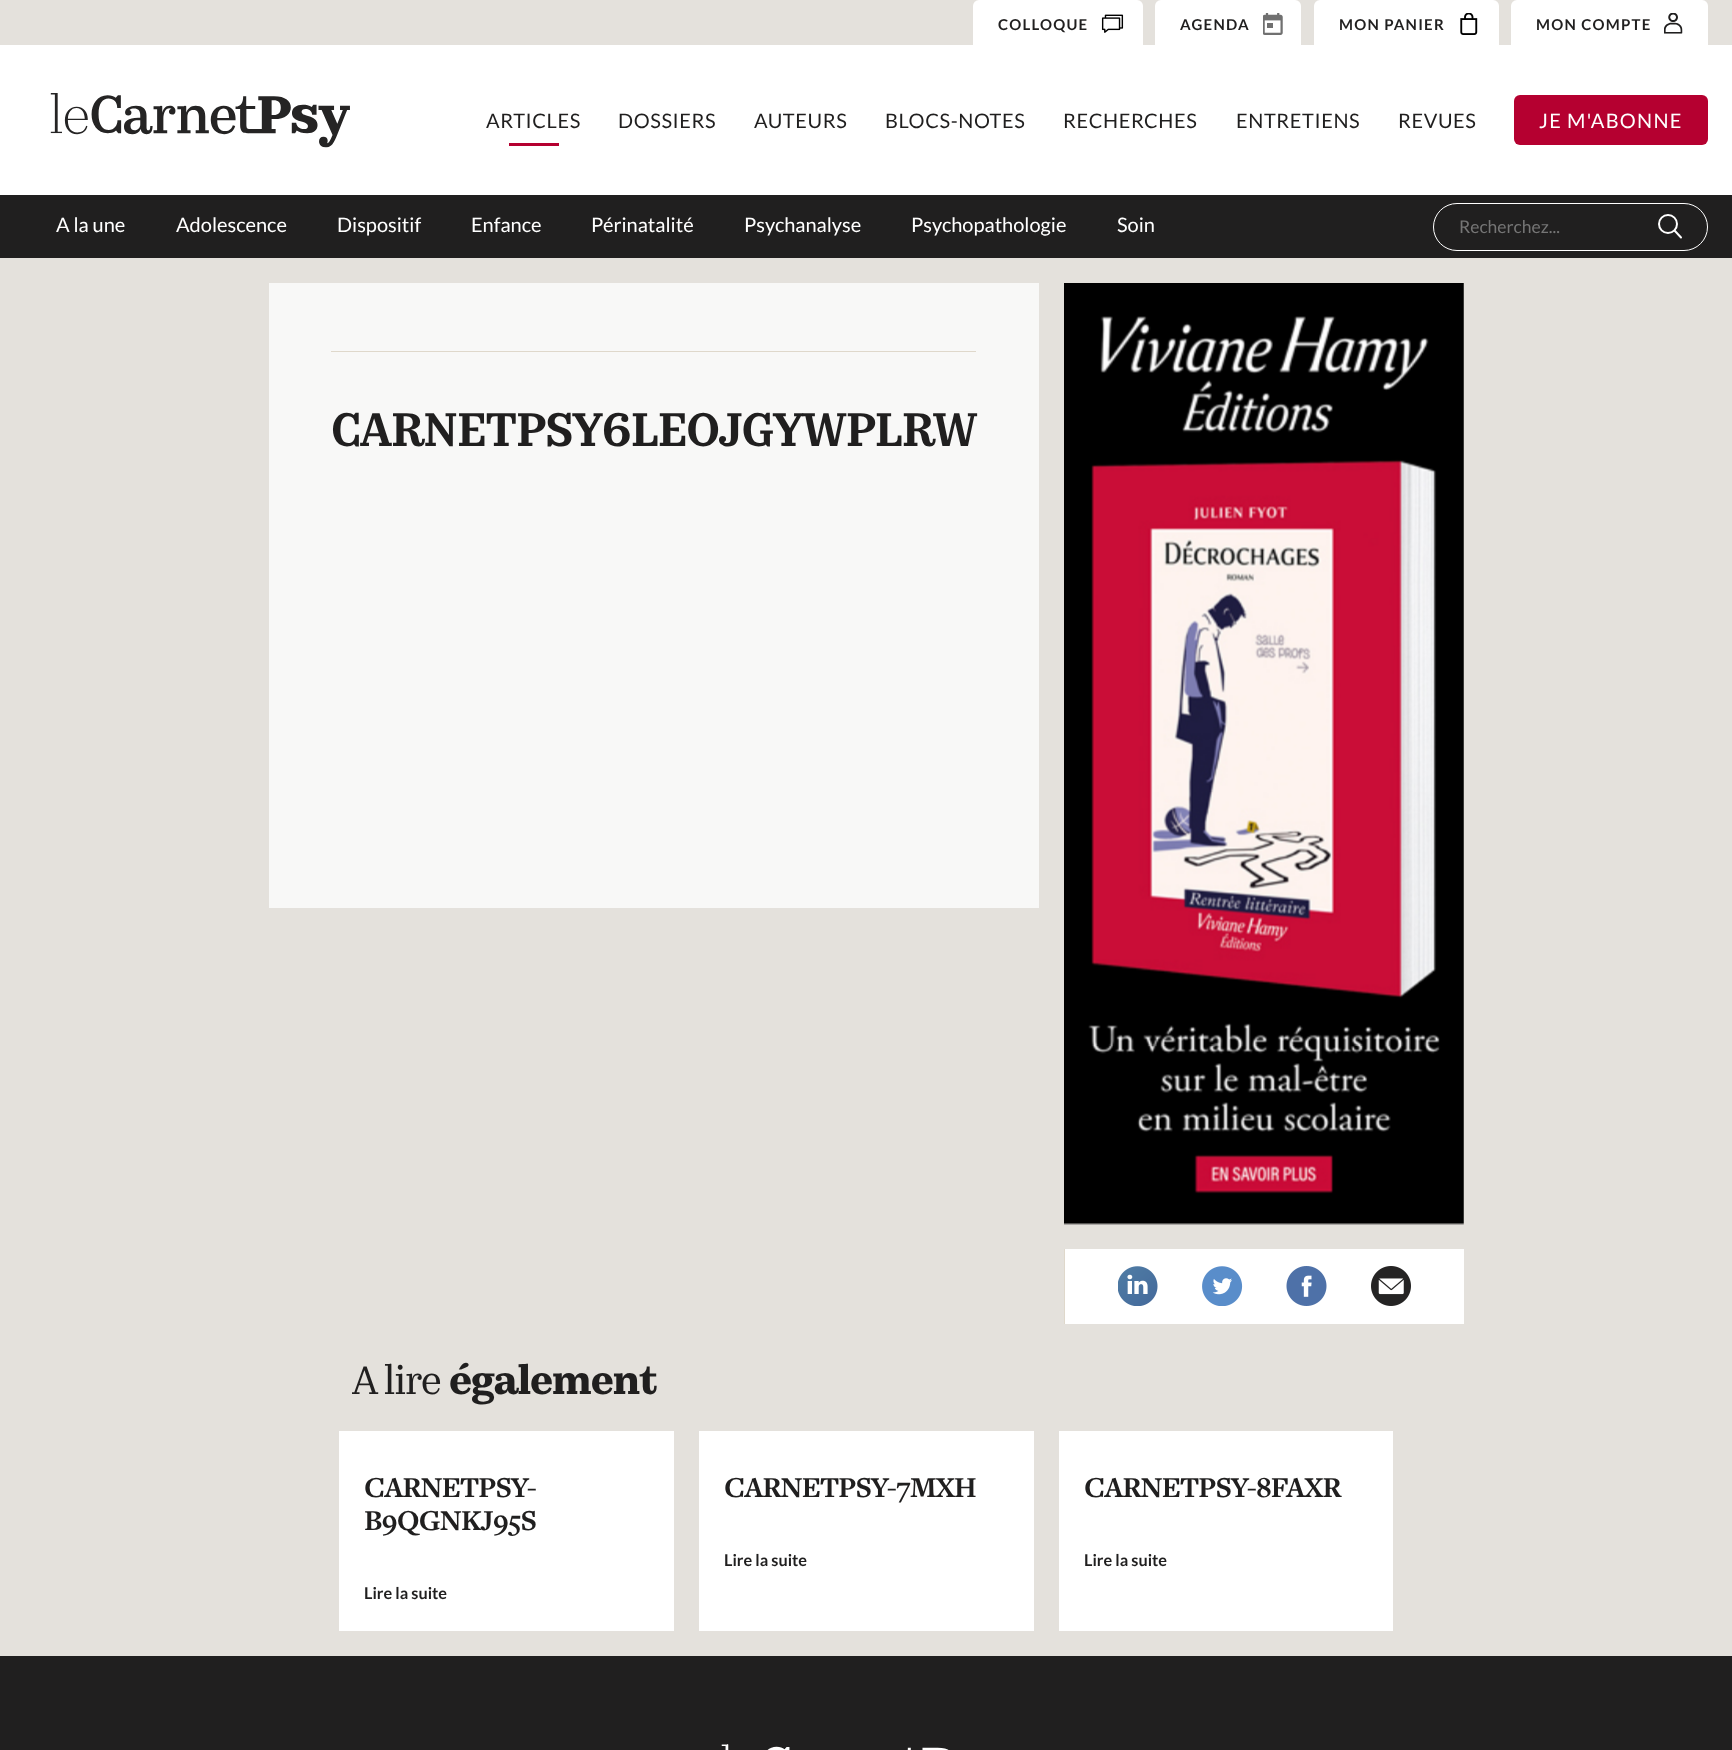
async function draw(canvas) {
	canvas.width = 1732;
	canvas.height = 1750;
	const c = canvas.getContext('2d');
	c.miterLimit = 4;
	c.fontKerning = 'normal';
	async function loadImage(src) {
		const img = new Image();
		img.src = src;
		await img.decode();
		return img;
	}

	c.fillStyle = '#e4e1dc';
	c.fillRect(0, 0, 1732, 1750);
	c.fillStyle = '#fff';
	c.fillRect(0, 45, 1732, 150);
	c.beginPath();
	c.roundRect(973, 0, 170, 45, [6, 6, 0, 0]);
	c.fill();
	c.letterSpacing = '1.25px';
	c.font = 'bold 15px Lato';
	c.fillStyle = '#201f1f';
	c.fillText('COLLOQUE', 998, 30);
	c.drawImage(await loadImage('img1.png'), 1101, 14, 23, 19);
	c.fillStyle = '#fff';
	c.beginPath();
	c.roundRect(1155, 0, 146, 45, [6, 6, 0, 0]);
	c.fill();
	c.fillStyle = '#201f1f';
	c.fillText('AGENDA', 1180, 30);
	c.drawImage(await loadImage('img2.png'), 1263, 13, 20, 22);
	c.fillStyle = '#fff';
	c.beginPath();
	c.roundRect(1314, 0, 185, 45, [6, 6, 0, 0]);
	c.fill();
	c.fillStyle = '#201f1f';
	c.fillText('MON PANIER', 1339, 30);
	c.drawImage(await loadImage('img3.png'), 1460, 13, 18, 22);
	c.fillStyle = '#fff';
	c.beginPath();
	c.roundRect(1511, 0, 197, 45, [6, 6, 0, 0]);
	c.fill();
	c.fillStyle = '#201f1f';
	c.fillText('MON COMPTE', 1536, 30);
	c.drawImage(await loadImage('img4.png'), 1664, 13, 19, 21);
	c.drawImage(await loadImage('img5.png'), 50, 93, 300, 55);
	c.letterSpacing = '0.6px';
	c.font = '20px Lato';
	c.fillText('ARTICLES', 486, 128);
	c.fillStyle = '#b50030';
	c.fillRect(509, 143, 50, 3);
	c.fillStyle = '#201f1f';
	for (const [text, x, y] of [
		['DOSSIERS', 618, 128],
		['AUTEURS', 754, 128],
		['BLOCS-NOTES', 885, 128],
		['RECHERCHES', 1063, 128],
		['ENTRETIENS', 1236, 128],
		['REVUES', 1398, 128],
	]) {
		c.fillText(text, x, y);
	}
	c.fillStyle = '#b50030';
	c.beginPath();
	c.roundRect(1514, 95, 194, 50, 6);
	c.fill();
	c.letterSpacing = '1.25px';
	c.fillStyle = '#fff';
	c.fillText('JE M\'ABONNE', 1539, 128);
	c.fillStyle = '#201f1f';
	c.fillRect(0, 195, 1732, 63);
	c.letterSpacing = '0px';
	c.fillStyle = '#fff';
	for (const [text, x, y] of [
		['A la une', 56, 232],
		['Adolescence', 176, 232],
		['Dispositif', 337, 232],
		['Enfance', 471, 232],
		['Périnatalité', 591, 232],
		['Psychanalyse', 744, 232],
		['Psychopathologie', 911, 232],
		['Soin', 1117, 232],
	]) {
		c.fillText(text, x, y);
	}
	c.beginPath();
	c.roundRect(1433.5, 203.5, 274, 47, 23.5);
	c.strokeStyle = '#fff';
	c.stroke();
	c.font = '17.5px Lato';
	c.fillStyle = '#757575';
	c.fillText('Recherchez...', 1459, 233);
	c.beginPath();
	c.arc(1668, 224, 9, 0, 2 * Math.PI);
	c.lineWidth = 2;
	c.stroke();
	c.beginPath();
	c.moveTo(1681, 237.5);
	c.lineTo(1674.5, 230.5);
	c.lineCap = 'round';
	c.lineJoin = 'round';
	c.stroke();
	c.fillStyle = '#f8f8f7';
	c.fillRect(269, 283, 770, 625);
	c.fillStyle = '#dfd8cb';
	c.fillRect(331, 351, 645, 1);
	c.letterSpacing = '-1.25px';
	c.font = '600 47.5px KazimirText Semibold';
	c.fillStyle = '#201f1f';
	c.fillText('CARNETPSY6LEOJGYWPLRW', 331, 446);
	c.drawImage(await loadImage('img6.png'), 1064, 283, 400, 942);
	c.fillStyle = '#fff';
	c.fillRect(1065, 1249, 399, 75);
	c.fillStyle = '#dfd8cb';
	c.fillRect(1064, 1249, 1, 75);
	c.drawImage(await loadImage('img7.png'), 1118, 1266, 40, 40);
	c.drawImage(await loadImage('img8.png'), 1202, 1266, 41, 40);
	c.drawImage(await loadImage('img9.png'), 1286, 1266, 41, 40);
	c.drawImage(await loadImage('img10.png'), 1371, 1266, 40, 40);
	c.font = '40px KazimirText';
	c.fillStyle = '#201f1f';
	c.fillText('A lire', 352, 1394);
	c.font = 'bold 40px KazimirText';
	c.fillText('également', 449, 1394);
	c.fillStyle = '#fff';
	c.fillRect(339, 1431, 335, 200);
	c.letterSpacing = '-0.9px';
	c.font = 'bold 30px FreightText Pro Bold';
	c.fillStyle = '#201f1f';
	c.fillText('CARNETPSY-', 364, 1497);
	c.fillText('B9QGNKJ95S', 364, 1530);
	c.letterSpacing = '0px';
	c.font = 'bold 16.25px Lato';
	c.fillText('Lire la suite', 364, 1599);
	c.fillStyle = '#fff';
	c.fillRect(699, 1431, 335, 200);
	c.letterSpacing = '-0.9px';
	c.font = 'bold 30px FreightText Pro Bold';
	c.fillStyle = '#201f1f';
	c.fillText('CARNETPSY-7MXH', 724, 1497);
	c.letterSpacing = '0px';
	c.font = 'bold 16.25px Lato';
	c.fillText('Lire la suite', 724, 1566);
	c.fillStyle = '#fff';
	c.fillRect(1059, 1431, 334, 200);
	c.letterSpacing = '-0.9px';
	c.font = 'bold 30px FreightText Pro Bold';
	c.fillStyle = '#201f1f';
	c.fillText('CARNETPSY-8FAXR', 1084, 1497);
	c.letterSpacing = '0px';
	c.font = 'bold 16.25px Lato';
	c.fillText('Lire la suite', 1084, 1566);
	c.fillRect(0, 1656, 1732, 94);
	c.drawImage(await loadImage('img11.png'), 721, 1744, 228, 6);
}

draw(document.querySelector('canvas'));
